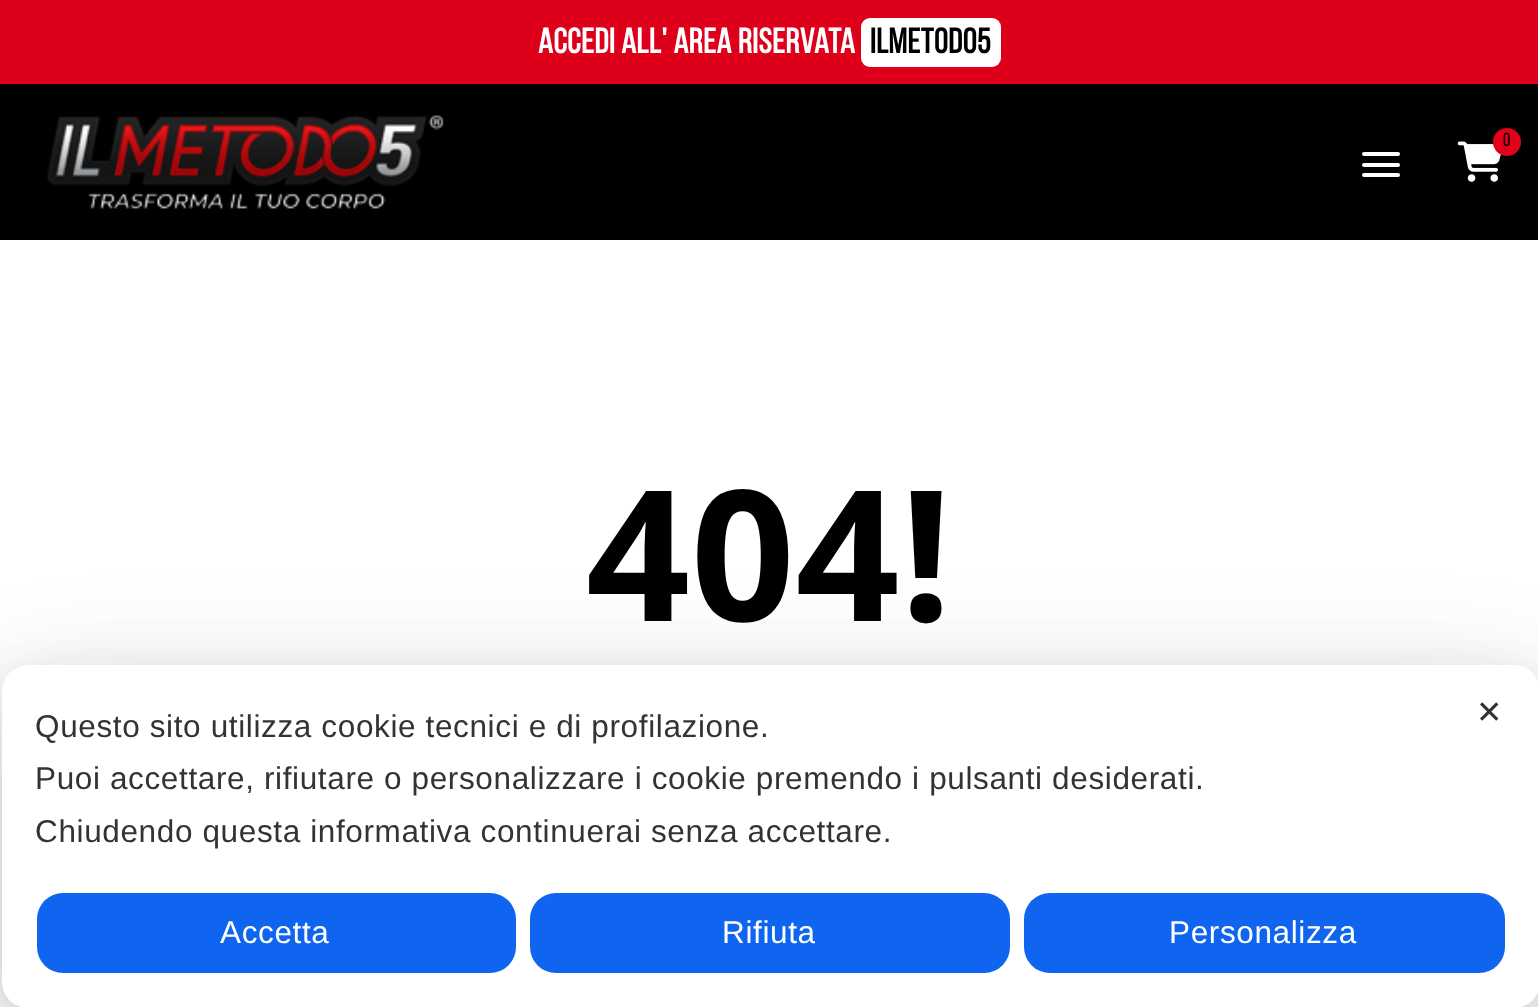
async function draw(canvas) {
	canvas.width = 1538;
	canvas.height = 1007;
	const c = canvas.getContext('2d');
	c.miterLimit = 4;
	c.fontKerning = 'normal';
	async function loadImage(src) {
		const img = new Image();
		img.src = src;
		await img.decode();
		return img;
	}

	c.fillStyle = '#fff';
	c.fillRect(0, 0, 1538, 1007);
	c.fillStyle = '#de001a';
	c.fillRect(0, 0, 1538, 84);
	c.letterSpacing = '0.63px';
	c.font = 'bold 35px Bebas Neue';
	c.fillStyle = '#fff';
	c.fillText('Accedi all\' Area Riservata', 538, 53);
	c.beginPath();
	c.roundRect(861, 18, 140, 49, 9);
	c.fill();
	c.fillStyle = '#000';
	c.fillText('ILMetodo5', 870, 53);
	c.fillRect(0, 84, 1538, 156);
	c.drawImage(await loadImage('img1.png'), 47, 115, 397, 94);
	c.drawImage(await loadImage('img2.png'), 1457, 141, 44, 41);
	c.fillStyle = '#e3001b';
	c.beginPath();
	c.arc(1507, 142, 14, 0, 2 * Math.PI);
	c.fill();
	c.letterSpacing = '0px';
	c.font = '19px Bebas Neue';
	c.fillStyle = '#000';
	c.fillText('0', 1503, 146);
	c.fillStyle = '#fff';
	c.beginPath();
	c.roundRect(1362, 152, 38, 4, 2);
	c.fill();
	c.beginPath();
	c.roundRect(1362, 163, 38, 4, 2);
	c.fill();
	c.beginPath();
	c.roundRect(1362, 173, 38, 4, 2);
	c.fill();
	c.letterSpacing = '0.63px';
	c.font = 'bold 182px Open Sans';
	c.fillStyle = '#000';
	c.fillText('404!', 586, 621);
	c.fillStyle = '#11111a1a';
	c.filter = 'blur(70px)';
	c.beginPath();
	c.roundRect(2, 707, 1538, 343, 26);
	c.fill();
	c.filter = 'none';
	c.filter = 'blur(49px)';
	c.beginPath();
	c.roundRect(2, 693, 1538, 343, 26);
	c.fill();
	c.filter = 'none';
	c.filter = 'blur(21px)';
	c.beginPath();
	c.roundRect(2, 679, 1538, 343, 26);
	c.fill();
	c.filter = 'none';
	c.fillStyle = '#fff';
	c.beginPath();
	c.roundRect(2, 665, 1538, 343, 26);
	c.fill();
	c.font = '31.5px DejaVu Sans';
	c.fillStyle = '#333';
	c.fillText('✕', 1476, 723);
	c.font = '31.5px Liberation Sans';
	for (const [text, x, y] of [
		['Questo sito utilizza cookie tecnici e di profilazione.', 35, 737],
		['Puoi accettare, rifiutare o personalizzare i cookie premendo i pulsanti desiderati.', 35, 789],
		['Chiudendo questa informativa continuerai senza accettare.', 35, 842],
	]) {
		c.fillText(text, x, y);
	}
	c.fillStyle = '#0f65f0';
	c.beginPath();
	c.roundRect(37, 893, 479, 80, 26);
	c.fill();
	c.fillStyle = '#fff';
	c.fillText('Accetta', 220, 943);
	c.fillStyle = '#0f65f0';
	c.beginPath();
	c.roundRect(530, 893, 480, 80, 26);
	c.fill();
	c.fillStyle = '#fff';
	c.fillText('Rifiuta', 722, 943);
	c.fillStyle = '#0f65f0';
	c.beginPath();
	c.roundRect(1024, 893, 481, 80, 26);
	c.fill();
	c.fillStyle = '#fff';
	c.fillText('Personalizza', 1169, 943);
}

draw(document.querySelector('canvas'));
